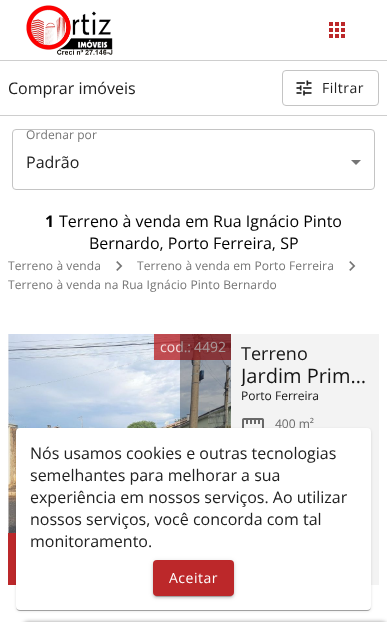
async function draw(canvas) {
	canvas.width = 387;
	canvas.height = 622;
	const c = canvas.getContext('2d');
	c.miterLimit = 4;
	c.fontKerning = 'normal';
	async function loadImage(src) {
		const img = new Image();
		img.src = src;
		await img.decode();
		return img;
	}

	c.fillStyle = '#fff';
	c.fillRect(0, 0, 387, 622);
	c.drawImage(await loadImage('img1.png'), 26, 5, 87, 50);
	c.drawImage(await loadImage('img2.png'), 329, 22, 16, 16);
	c.fillStyle = '#cecece';
	c.fillRect(0, 60, 387, 1);
	c.fillRect(0, 115, 387, 1);
	c.font = '16px Open Sans';
	c.fillStyle = '#212121';
	c.fillText('Comprar imóveis', 8, 94);
	c.beginPath();
	c.roundRect(282.5, 70.5, 96, 35, 3.5);
	c.strokeStyle = '#c4c4c4';
	c.stroke();
	c.drawImage(await loadImage('img3.png'), 296, 80, 16, 16);
	c.letterSpacing = '0.5px';
	c.font = '14px Open Sans';
	c.fillText('Filtrar', 322, 93);
	c.fillStyle = '#757575';
	c.beginPath();
	c.moveTo(351, 160);
	c.lineTo(356, 165);
	c.lineTo(361, 160);
	c.closePath();
	c.fill();
	c.beginPath();
	c.roundRect(12.5, 129.5, 362, 60, 3.5);
	c.stroke();
	c.letterSpacing = '0.1px';
	c.font = '12px Open Sans';
	c.fillText('Ordenar por', 26, 139);
	c.letterSpacing = '0px';
	c.font = '16px Open Sans';
	c.fillStyle = '#212121';
	c.fillText('Padrão', 26, 168);
	c.font = 'bold 16px Open Sans';
	c.fillStyle = '#000';
	c.fillText('1', 45, 227);
	c.font = '16px Open Sans';
	c.fillText('Terreno à venda em Rua Ignácio Pinto', 59, 227);
	c.fillText('Bernardo, Porto Ferreira, SP', 89, 249);
	c.letterSpacing = '0.1px';
	c.font = '12px Open Sans';
	c.fillStyle = '#757575';
	c.fillText('Terreno à venda', 8, 270);
	c.drawImage(await loadImage('img4.png'), 116, 261, 7, 10);
	c.fillText('Terreno à venda em Porto Ferreira', 137, 270);
	c.drawImage(await loadImage('img4.png'), 349, 261, 7, 10);
	c.fillText('Terreno à venda na Rua Ignácio Pinto Bernardo', 8, 289);
	c.fillStyle = '#f3f3f3';
	c.fillRect(231, 334, 148, 251);
	c.fillStyle = '#f1f1f2';
	c.fillRect(8, 334, 1, 199);
	c.drawImage(await loadImage('img5.png'), 8, 334, 223, 199);
	c.fillStyle = '#bc282acc';
	c.fillRect(154, 334, 77, 26);
	c.letterSpacing = '0px';
	c.font = '14px Open Sans';
	c.fillStyle = '#f2dbdc';
	c.fillText('cod.:', 160, 352);
	c.fillText('4492', 194, 352);
	c.fillStyle = '#0000004d';
	c.fillRect(180, 334, 51, 94);
	c.fillStyle = '#bc282a';
	c.fillRect(8, 533, 8, 52);
	c.font = '18px Open Sans';
	c.fillStyle = '#151515';
	c.fillText('Terreno', 241, 360);
	c.save();
	c.beginPath();
	c.rect(241, 366, 128, 20);
	c.clip();
	c.font = '20px Open Sans';
	c.fillText('Jardim Prim…', 241, 383);
	c.restore();
	c.font = '12px Open Sans';
	c.fillText('Porto Ferreira', 241, 400);
	c.drawImage(await loadImage('img6.png'), 242, 418, 22, 10);
	c.fillStyle = '#696969';
	c.fillText('400 m²', 275, 428);
	c.fillStyle = '#0000001f';
	c.filter = 'blur(1.5px)';
	c.beginPath();
	c.roundRect(16, 429, 355, 182, 4);
	c.fill();
	c.filter = 'none';
	c.fillStyle = '#00000024';
	c.filter = 'blur(0.5px)';
	c.beginPath();
	c.roundRect(16, 429, 355, 182, 4);
	c.fill();
	c.filter = 'none';
	c.fillStyle = '#00000033';
	c.filter = 'blur(0.5px)';
	c.beginPath();
	c.roundRect(17, 431, 353, 180, 3);
	c.fill();
	c.filter = 'none';
	c.fillStyle = '#fff';
	c.beginPath();
	c.roundRect(16, 428, 355, 182, 4);
	c.fill();
	c.font = '16px Open Sans';
	c.fillStyle = '#212121';
	for (const [text, x, y] of [
		['Nós usamos cookies e outras tecnologias', 30, 459],
		['semelhantes para melhorar a sua', 30, 481],
		['experiência em nossos serviços. Ao utilizar', 30, 503],
		['nossos serviços, você concorda com tal', 30, 525],
		['monitoramento.', 30, 547],
	]) {
		c.fillText(text, x, y);
	}
	c.fillStyle = '#0000001f';
	c.filter = 'blur(2.5px)';
	c.beginPath();
	c.roundRect(153, 561, 81, 36, 4);
	c.fill();
	c.filter = 'none';
	c.fillStyle = '#00000024';
	c.filter = 'blur(1px)';
	c.beginPath();
	c.roundRect(153, 562, 81, 36, 4);
	c.fill();
	c.filter = 'none';
	c.fillStyle = '#00000033';
	c.filter = 'blur(0.5px)';
	c.beginPath();
	c.roundRect(155, 565, 77, 32, 2);
	c.fill();
	c.filter = 'none';
	c.fillStyle = '#bc282a';
	c.beginPath();
	c.roundRect(153, 560, 81, 36, 4);
	c.fill();
	c.letterSpacing = '0.5px';
	c.font = '14px Open Sans';
	c.fillStyle = '#fff';
	c.fillText('Aceitar', 169, 583);
	c.fillStyle = '#00000066';
	c.filter = 'blur(2px)';
	c.beginPath();
	c.roundRect(23, 622, 364, 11, 5);
	c.fill();
	c.filter = 'none';
}

draw(document.querySelector('canvas'));
